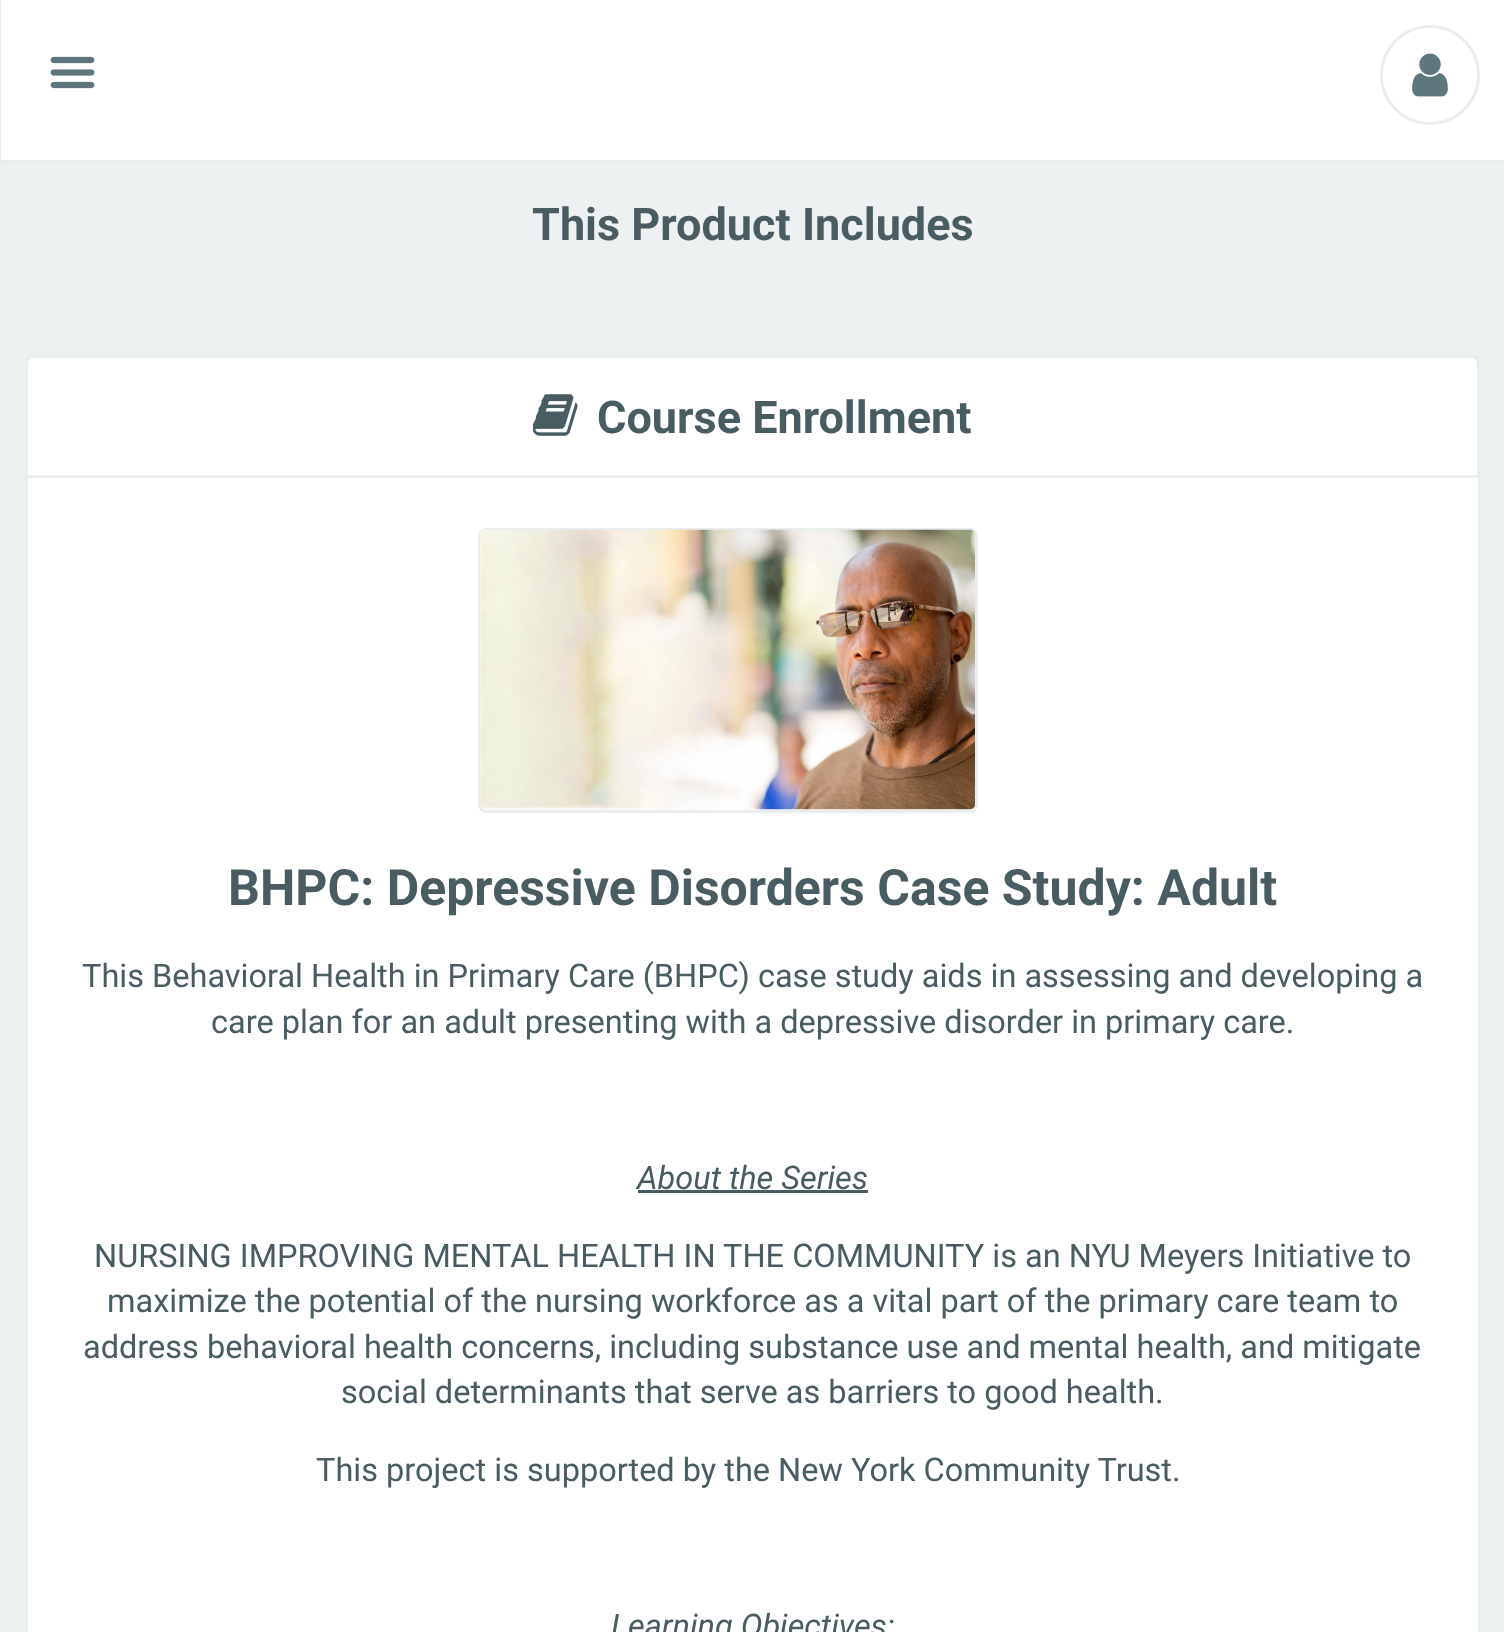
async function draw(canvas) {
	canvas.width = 1504;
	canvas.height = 1632;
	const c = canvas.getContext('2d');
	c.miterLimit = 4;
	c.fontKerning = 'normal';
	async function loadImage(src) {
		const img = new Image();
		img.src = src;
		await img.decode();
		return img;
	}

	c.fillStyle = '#eef1f2';
	c.fillRect(0, 0, 1504, 1632);
	c.fillStyle = '#fff';
	c.fillRect(1, 0, 1503, 160);
	c.fillStyle = '#e8edee';
	c.fillRect(0, 160, 1504, 3);
	c.drawImage(await loadImage('img1.png'), 50, 56, 45, 33);
	c.beginPath();
	c.arc(1430, 75, 48.5, 0, 2 * Math.PI);
	c.strokeStyle = '#e8edee';
	c.lineWidth = 3;
	c.stroke();
	c.drawImage(await loadImage('img2.png'), 1412, 53, 36, 44);
	c.fillRect(0, 0, 1, 1632);
	c.font = 'bold 45px Roboto';
	c.fillStyle = '#485c61';
	c.fillText('This Product Includes', 532, 240);
	c.fillStyle = '#fff';
	c.beginPath();
	c.roundRect(26.5, 356.5, 1452, 120, [6.5, 6.5, 0, 0]);
	c.fill();
	c.stroke();
	c.drawImage(await loadImage('img3.png'), 533, 394, 45, 42);
	c.fillStyle = '#485c61';
	c.fillText('Course Enrollment', 597, 433);
	c.fillStyle = '#fff';
	c.fillRect(28, 478, 1450, 1154);
	c.fillStyle = '#e8edee';
	c.beginPath();
	c.moveTo(25, 478);
	c.lineTo(1480, 478);
	c.lineTo(1480, 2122);
	c.bezierCurveTo(1480, 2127, 1477, 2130, 1472, 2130);
	c.lineTo(32, 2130);
	c.bezierCurveTo(28, 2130, 25, 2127, 25, 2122);
	c.closePath();
	c.moveTo(28, 478);
	c.lineTo(1478, 478);
	c.lineTo(1478, 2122);
	c.bezierCurveTo(1478, 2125, 1475, 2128, 1472, 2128);
	c.lineTo(32, 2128);
	c.bezierCurveTo(30, 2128, 28, 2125, 28, 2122);
	c.closePath();
	c.fill('evenodd');
	c.beginPath();
	c.roundRect(479.5, 529.5, 497, 282, 6.5);
	c.stroke();
	c.drawImage(await loadImage('img4.png'), 480, 529, 495, 281);
	c.font = 'bold 50px Roboto';
	c.fillStyle = '#485c61';
	c.fillText('BHPC: Depressive Disorders Case Study: Adult', 228, 905);
	c.font = '32.5px Roboto';
	c.fillText('This Behavioral Health in Primary Care (BHPC) case study aids in assessing and developing a', 82, 987);
	c.fillText('care plan for an adult presenting with a depressive disorder in primary care.', 211, 1033);
	c.font = 'italic 32.5px Roboto';
	c.fillText('About the Series', 637, 1189);
	c.fillRect(638, 1190, 230, 3);
	c.font = '32.5px Roboto';
	for (const [text, x, y] of [
		['NURSING IMPROVING MENTAL HEALTH IN THE COMMUNITY is an NYU Meyers Initiative to', 94, 1267],
		['maximize the potential of the nursing workforce as a vital part of the primary care team to', 107, 1312],
		['address behavioral health concerns, including substance use and mental health, and mitigate', 83, 1358],
		['social determinants that serve as barriers to good health.', 341, 1403],
		['This project is supported by the New York Community Trust.', 316, 1481],
	]) {
		c.fillText(text, x, y);
	}
	c.font = 'italic 32.5px Roboto';
	c.fillText('Learning Objectives:', 611, 1637);
}

draw(document.querySelector('canvas'));
